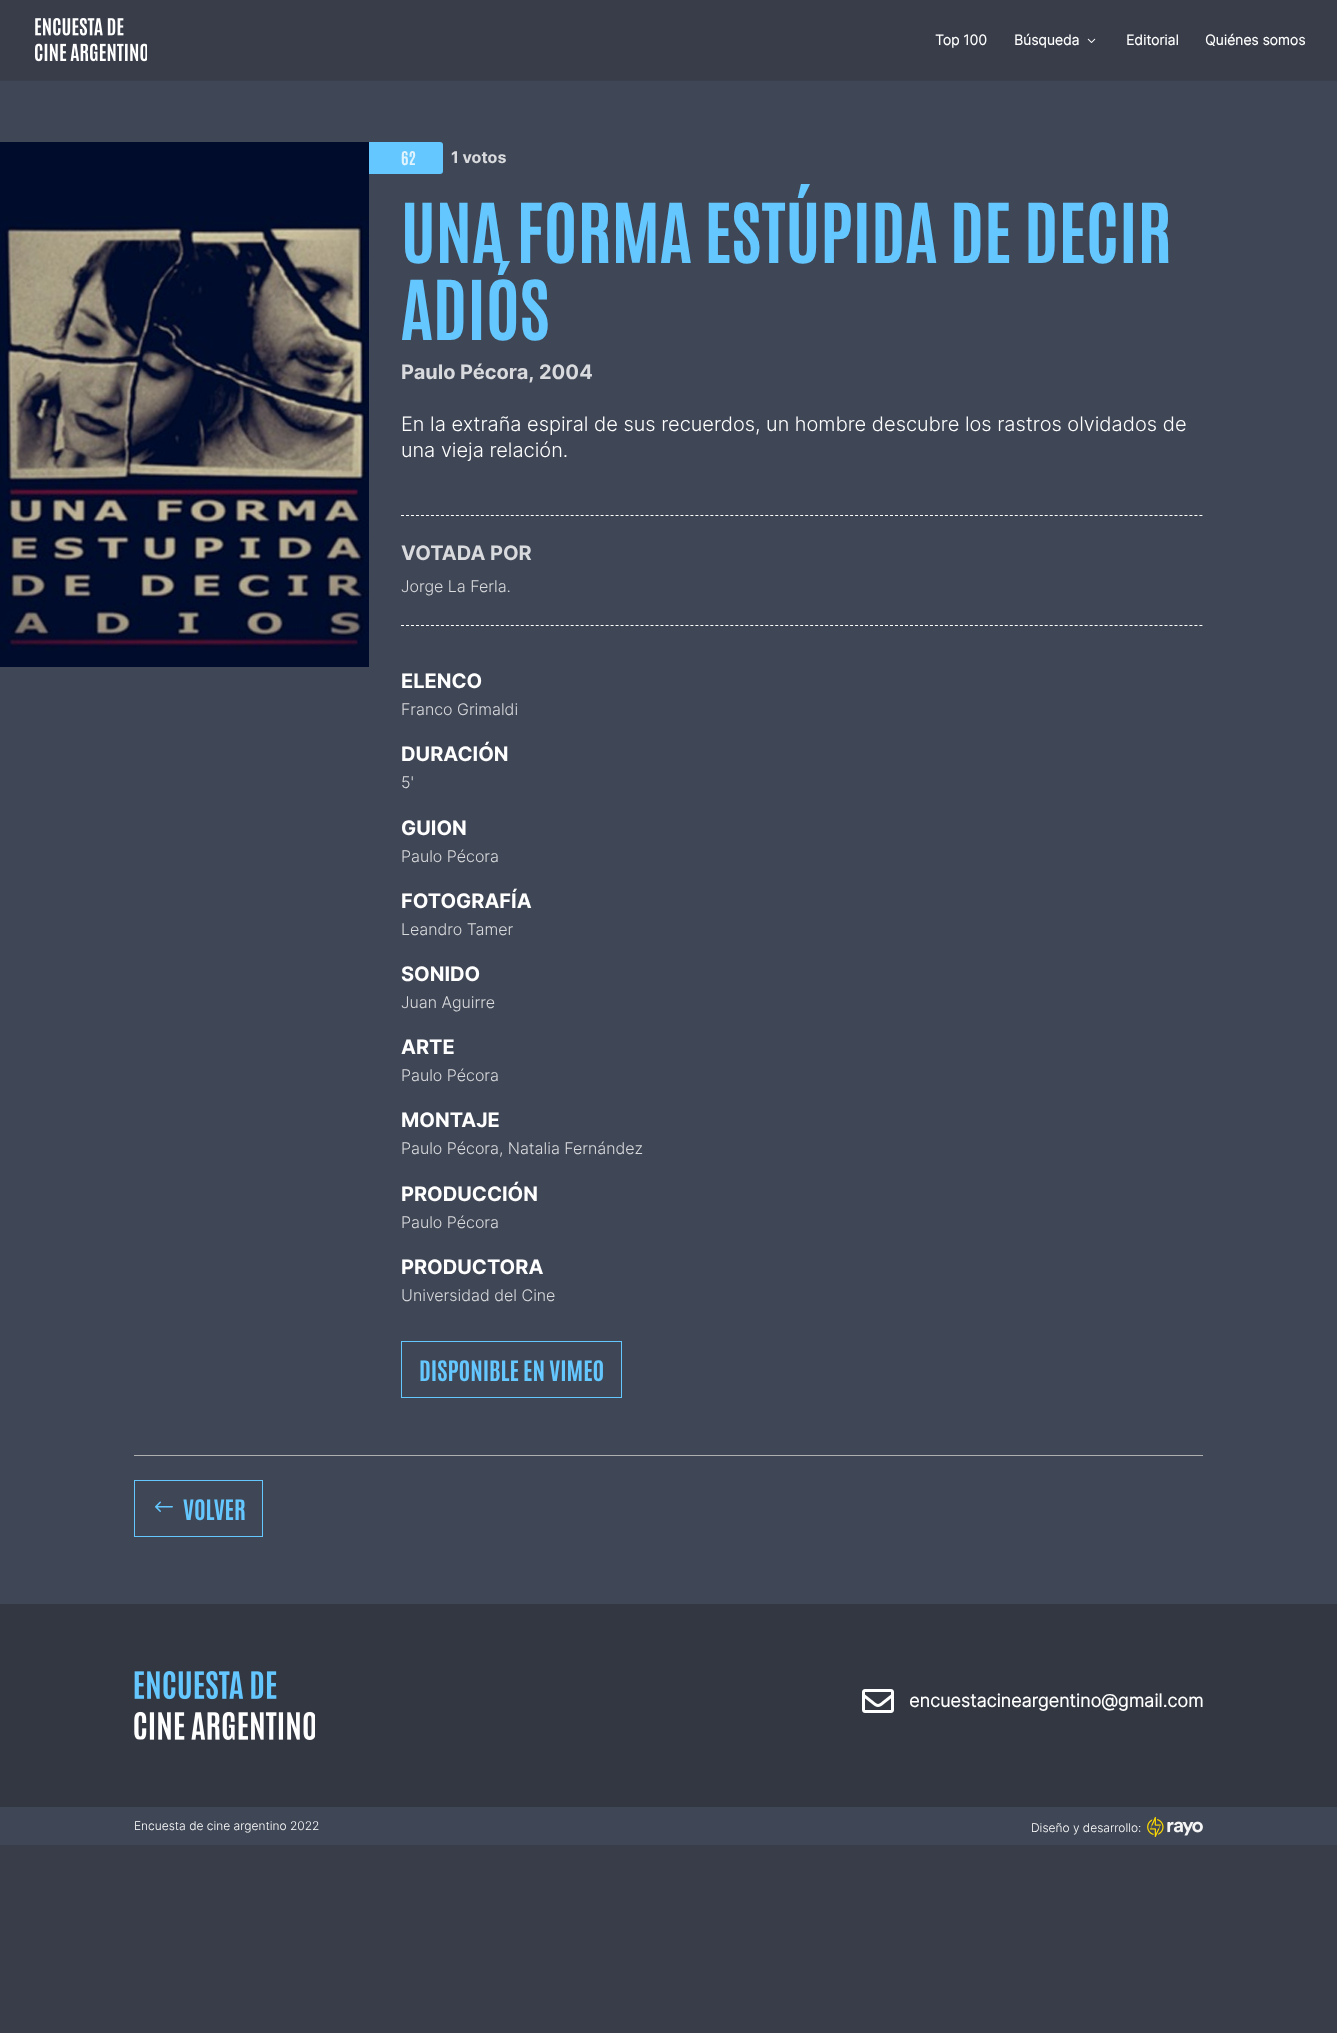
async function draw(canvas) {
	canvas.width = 1337;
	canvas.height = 2033;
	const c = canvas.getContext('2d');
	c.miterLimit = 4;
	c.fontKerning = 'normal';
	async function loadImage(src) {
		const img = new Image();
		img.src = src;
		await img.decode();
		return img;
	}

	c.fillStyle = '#383d49';
	c.fillRect(0, 0, 1337, 2033);
	c.fillStyle = '#393f4d';
	c.fillRect(0, 80, 1337, 1);
	c.drawImage(await loadImage('img1.png'), 35, 18, 112, 44);
	c.font = 'bold 14px "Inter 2"';
	c.fillStyle = '#fff';
	c.fillText('Top 100', 935, 45);
	c.fillText('Búsqueda', 1014, 45);
	c.drawImage(await loadImage('img2.png'), 1087, 38, 9, 5);
	c.fillText('Editorial', 1126, 45);
	c.fillText('Quiénes somos', 1205, 45);
	c.fillStyle = '#3f4655';
	c.fillRect(0, 81, 1337, 1523);
	c.drawImage(await loadImage('img3.png'), 0, 142, 369, 525);
	c.fillStyle = '#65c7ff';
	c.beginPath();
	c.roundRect(369, 142, 74, 32, [0, 3, 3, 0]);
	c.fill();
	c.font = 'bold 16px Antonio';
	c.fillStyle = '#e0f4ff';
	c.fillText('62', 401, 165);
	c.font = 'bold 16px Inter';
	c.fillStyle = '#d9dadd';
	c.fillText('1 votos', 451, 163);
	c.font = 'bold 70px Antonio';
	c.fillStyle = '#65c7ff';
	c.fillText('UNA FORMA ESTÚPIDA DE DECIR', 401, 263);
	c.fillText('ADIÓS', 401, 340);
	c.font = 'bold 20px Inter';
	c.fillStyle = '#d9dadd';
	c.fillText('Paulo Pécora,', 401, 379);
	c.fillText('2004', 539, 379);
	c.font = '300 20px Inter';
	c.fillStyle = '#fff';
	c.fillText('En la extraña espiral de sus recuerdos, un hombre descubre los rastros olvidados de', 401, 431);
	c.fillText('una vieja relación.', 401, 457);
	c.beginPath();
	c.moveTo(401, 515.5);
	c.lineTo(1203, 515.5);
	c.strokeStyle = '#fff';
	c.setLineDash([3, 1.99]);
	c.stroke();
	c.font = 'bold 20px Inter';
	c.fillStyle = '#d9dadd';
	c.fillText('VOTADA POR', 401, 560);
	c.font = '300 16px Inter';
	c.fillText('Jorge La Ferla.', 401, 592);
	c.beginPath();
	c.moveTo(401, 625.5);
	c.lineTo(1203, 625.5);
	c.stroke();
	c.font = 'bold 20px Inter';
	c.fillStyle = '#fff';
	c.fillText('ELENCO', 401, 688);
	c.font = '300 16px Inter';
	c.fillStyle = '#d9dadd';
	c.fillText('Franco Grimaldi', 401, 715);
	c.font = 'bold 20px Inter';
	c.fillStyle = '#fff';
	c.fillText('DURACIÓN', 401, 761);
	c.font = '300 16px Inter';
	c.fillStyle = '#d9dadd';
	c.fillText('5\'', 401, 788);
	c.font = 'bold 20px Inter';
	c.fillStyle = '#fff';
	c.fillText('GUION', 401, 835);
	c.font = '300 16px Inter';
	c.fillStyle = '#d9dadd';
	c.fillText('Paulo Pécora', 401, 862);
	c.font = 'bold 20px Inter';
	c.fillStyle = '#fff';
	c.fillText('FOTOGRAFÍA', 401, 908);
	c.font = '300 16px Inter';
	c.fillStyle = '#d9dadd';
	c.fillText('Leandro Tamer', 401, 935);
	c.font = 'bold 20px Inter';
	c.fillStyle = '#fff';
	c.fillText('SONIDO', 401, 981);
	c.font = '300 16px Inter';
	c.fillStyle = '#d9dadd';
	c.fillText('Juan Aguirre', 401, 1008);
	c.font = 'bold 20px Inter';
	c.fillStyle = '#fff';
	c.fillText('ARTE', 401, 1054);
	c.font = '300 16px Inter';
	c.fillStyle = '#d9dadd';
	c.fillText('Paulo Pécora', 401, 1081);
	c.font = 'bold 20px Inter';
	c.fillStyle = '#fff';
	c.fillText('MONTAJE', 401, 1127);
	c.font = '300 16px Inter';
	c.fillStyle = '#d9dadd';
	c.fillText('Paulo Pécora, Natalia Fernández', 401, 1154);
	c.font = 'bold 20px Inter';
	c.fillStyle = '#fff';
	c.fillText('PRODUCCIÓN', 401, 1201);
	c.font = '300 16px Inter';
	c.fillStyle = '#d9dadd';
	c.fillText('Paulo Pécora', 401, 1228);
	c.font = 'bold 20px Inter';
	c.fillStyle = '#fff';
	c.fillText('PRODUCTORA', 401, 1274);
	c.font = '300 16px Inter';
	c.fillStyle = '#d9dadd';
	c.fillText('Universidad del Cine', 401, 1301);
	c.strokeStyle = '#65c7ff';
	c.setLineDash([]);
	c.strokeRect(401.5, 1341.5, 220, 56);
	c.font = 'bold 24px Antonio';
	c.fillStyle = '#65c7ff';
	c.fillText('DISPONIBLE EN VIMEO', 419, 1381);
	c.fillStyle = '#afafaf';
	c.fillRect(134, 1455, 1069, 1);
	c.strokeRect(134.5, 1480.5, 128, 56);
	c.drawImage(await loadImage('img4.png'), 155, 1501, 18, 11);
	c.fillStyle = '#65c7ff';
	c.fillText('VOLVER', 183, 1520);
	c.fillStyle = '#323742';
	c.fillRect(0, 1604, 1337, 203);
	c.drawImage(await loadImage('img5.png'), 134, 1671, 181, 69);
	c.drawImage(await loadImage('img6.png'), 862, 1689, 32, 24);
	c.font = 'bold 18px "Inter 2"';
	c.fillStyle = '#fff';
	c.fillText('encuestacineargentino@gmail.com', 909, 1707);
	c.fillStyle = '#3f4655';
	c.fillRect(0, 1807, 1337, 38);
	c.font = '300 12px Inter';
	c.fillStyle = '#fff';
	c.fillText('Encuesta de cine argentino 2022', 134, 1830);
	c.fillText('Diseño y desarrollo:', 1031, 1832);
	c.drawImage(await loadImage('img7.png'), 1147, 1817, 56, 20);
}

draw(document.querySelector('canvas'));
